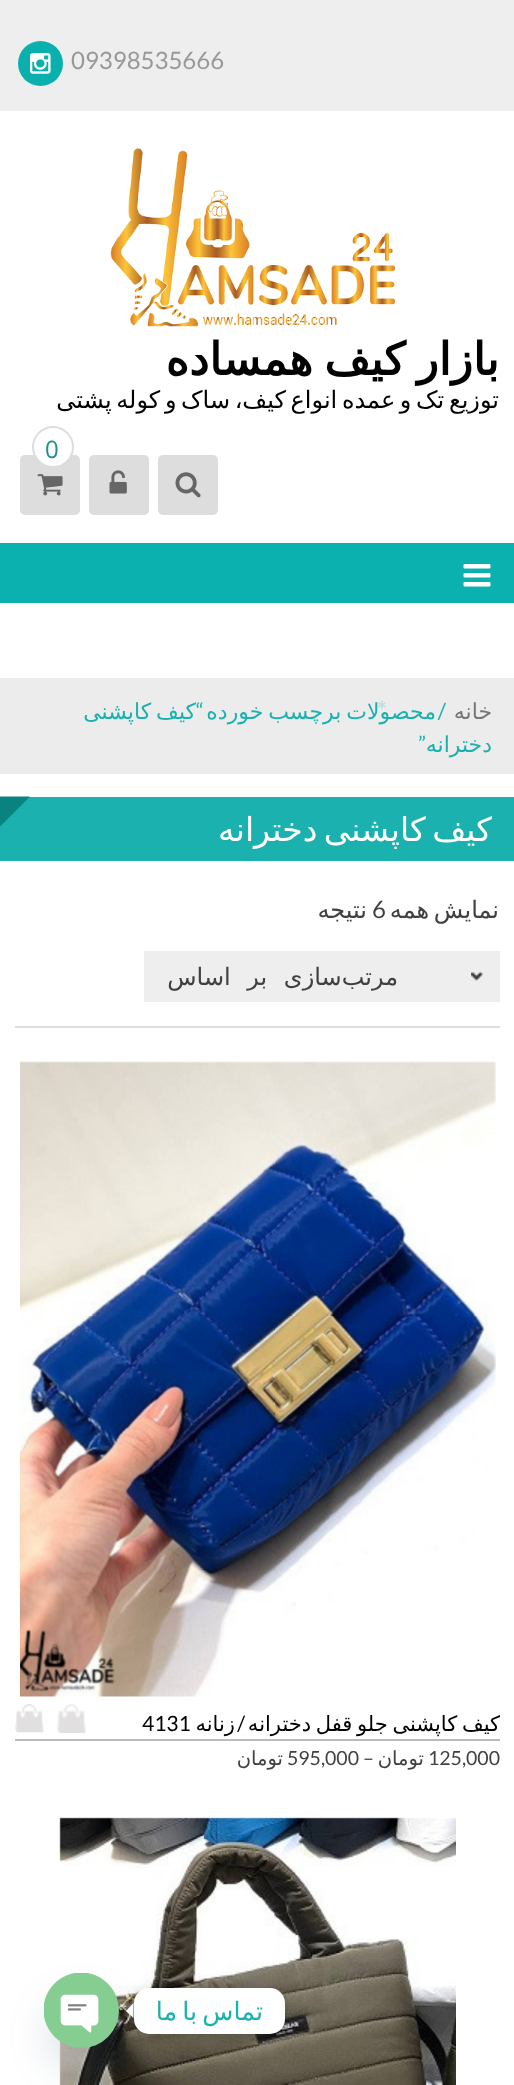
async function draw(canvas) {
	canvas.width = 514;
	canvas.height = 2085;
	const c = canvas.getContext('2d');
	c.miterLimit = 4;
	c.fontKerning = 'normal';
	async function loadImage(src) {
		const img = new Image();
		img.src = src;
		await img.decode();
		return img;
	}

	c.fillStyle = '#fff';
	c.fillRect(0, 0, 514, 2085);
	c.fillStyle = '#eee';
	c.fillRect(0, 0, 514, 111);
	c.font = '24px Lato';
	c.fillStyle = '#999797';
	c.fillText('09398535666', 71, 69);
	c.fillStyle = '#0ab0ae';
	c.beginPath();
	c.arc(40.5, 63.5, 22.5, 0, 2 * Math.PI);
	c.fill();
	c.drawImage(await loadImage('img1.png'), 30, 53, 21, 21);
	c.drawImage(await loadImage('img2.png'), 110, 148, 286, 179);
	c.wordSpacing = '-3px';
	c.direction = 'rtl';
	c.font = 'bold 45px DejaVu Sans';
	c.fillStyle = '#000';
	c.fillText('بازار کیف همساده', 499, 375);
	c.font = '24px DejaVu Sans';
	c.fillText('توزیع تک و عمده انواع کیف، ساک و کوله پشتی', 499, 408);
	c.fillStyle = '#ddd';
	c.beginPath();
	c.roundRect(20, 455, 60, 60, 5);
	c.fill();
	c.fillStyle = '#fff';
	c.beginPath();
	c.arc(53, 447, 20, 0, 2 * Math.PI);
	c.fill();
	c.strokeStyle = '#ddd';
	c.lineWidth = 2;
	c.stroke();
	c.wordSpacing = '0px';
	c.direction = 'ltr';
	c.font = '24px Open Sans';
	c.fillStyle = '#1b8e8d';
	c.fillText('0', 45, 458);
	c.drawImage(await loadImage('img3.png'), 37, 474, 26, 22);
	c.fillStyle = '#ddd';
	c.beginPath();
	c.roundRect(158, 455, 60, 60, 5);
	c.fill();
	c.drawImage(await loadImage('img4.png'), 175, 472, 26, 26);
	c.beginPath();
	c.roundRect(89, 455, 60, 60, 5);
	c.fill();
	c.drawImage(await loadImage('img5.png'), 109, 470, 18, 24);
	c.fillStyle = '#ececec';
	c.fillRect(0, 678, 514, 96);
	c.wordSpacing = '-2px';
	c.direction = 'rtl';
	c.font = '22px DejaVu Sans';
	c.fillStyle = '#1ab1ae';
	c.fillText('محصولات برچسب خورده', 436, 719);
	c.wordSpacing = '0px';
	c.direction = 'ltr';
	c.font = 'bold 24px Lato';
	c.fillStyle = '#bedfde';
	c.fillText('*', 377, 719);
	c.fillStyle = '#0bb1af';
	c.fillRect(0, 543, 514, 60);
	c.drawImage(await loadImage('img6.png'), 463, 564, 28, 23);
	c.direction = 'rtl';
	c.font = '22px DejaVu Sans';
	c.fillStyle = '#767676';
	c.fillText('خانه', 492, 719);
	c.font = '22px Lato';
	c.fillStyle = '#1ab1ae';
	c.fillText('/', 446, 719);
	c.wordSpacing = '-2px';
	c.font = '22px DejaVu Sans';
	c.fillText('کیف کاپشنی', 196, 719);
	c.wordSpacing = '0px';
	c.font = '22px Lato';
	c.fillText('“', 204, 719);
	c.font = '22px DejaVu Sans';
	c.fillText('دخترانه', 492, 752);
	c.font = '22px Lato';
	c.fillText('”', 426, 752);
	c.fillRect(0, 797, 514, 64);
	c.fillStyle = '#0a8280';
	c.beginPath();
	c.moveTo(0, 796.5);
	c.lineTo(30, 796.5);
	c.lineTo(0, 826.5);
	c.closePath();
	c.fill();
	c.wordSpacing = '-4px';
	c.font = '33px DejaVu Sans';
	c.fillStyle = '#fff';
	c.fillText('کیف کاپشنی دخترانه', 492, 841);
	c.wordSpacing = '-3px';
	c.font = '24px DejaVu Sans';
	c.fillStyle = '#404040';
	c.fillText('نمایش همه', 499, 918);
	c.wordSpacing = '0px';
	c.direction = 'ltr';
	c.font = '24px Lato';
	c.fillText('6', 372, 918);
	c.direction = 'rtl';
	c.font = '24px DejaVu Sans';
	c.fillText('نتیجه', 367, 918);
	c.fillStyle = '#eee';
	c.fillRect(144, 951, 356, 51);
	c.drawImage(await loadImage('img7.png'), 471, 972, 12, 9);
	c.wordSpacing = '9px';
	c.fillStyle = '#404040';
	c.fillText('مرتب‌سازی بر اساس', 398, 985);
	c.fillStyle = '#ddd';
	c.fillRect(15, 1026, 485, 2);
	c.drawImage(await loadImage('img8.png'), 20, 1061, 476, 636);
	c.fillStyle = '#bbb';
	c.fillRect(15, 1739, 485, 2);
	c.save();
	c.beginPath();
	c.rect(60, 1707, 440, 32);
	c.clip();
	c.wordSpacing = '-2px';
	c.font = '21px DejaVu Sans';
	c.fillStyle = '#000';
	c.fillText('کیف کاپشنی جلو قفل دخترانه', 500, 1731);
	c.restore();
	c.wordSpacing = '0px';
	c.font = '21px Lato';
	c.fillStyle = '#000';
	c.fillText('/', 245, 1731);
	c.font = '21px DejaVu Sans';
	c.fillText('زنانه', 235, 1731);
	c.direction = 'ltr';
	c.font = '21px Lato';
	c.fillText('4131', 142, 1731);
	c.drawImage(await loadImage('img9.png'), 57, 1704, 29, 29);
	c.drawImage(await loadImage('img10.png'), 15, 1704, 29, 29);
	c.font = '19.5px Lato';
	c.fillStyle = '#404040';
	c.fillText('125,000', 428, 1765);
	c.direction = 'rtl';
	c.font = '19.5px DejaVu Sans';
	c.fillText('تومان', 424, 1765);
	c.direction = 'ltr';
	c.font = '19.5px Lato';
	c.fillText('–', 363, 1765);
	c.fillText('595,000', 287, 1765);
	c.direction = 'rtl';
	c.font = '19.5px DejaVu Sans';
	c.fillText('تومان', 283, 1765);
	c.drawImage(await loadImage('img11.png'), 59, 1817, 397, 268);
	c.fillStyle = '#00000026';
	c.filter = 'blur(6px)';
	c.beginPath();
	c.roundRect(134, 1989, 151, 47, 15);
	c.fill();
	c.filter = 'none';
	c.fillStyle = '#fff';
	c.beginPath();
	c.roundRect(134, 1988, 151, 46, 15);
	c.fill();
	c.wordSpacing = '-3px';
	c.font = '25.5px DejaVu Sans';
	c.fillStyle = '#1ab1ae';
	c.fillText('تماس با ما', 263, 2020);
	c.fillStyle = '#fff';
	c.beginPath();
	c.moveTo(133.5, 2003);
	c.lineTo(133.5, 2018);
	c.lineTo(126, 2011);
	c.closePath();
	c.fill();
	c.fillStyle = '#49687e29';
	c.filter = 'blur(18px)';
	c.beginPath();
	c.roundRect(44, 1997, 75, 75, 37.5);
	c.fill();
	c.filter = 'none';
	c.fillStyle = '#86cd91';
	c.beginPath();
	c.arc(81.5, 2010.5, 37.5, 0, 2 * Math.PI);
	c.fill();
	c.drawImage(await loadImage('img12.png'), 44, 1973, 73, 69);
}

draw(document.querySelector('canvas'));
